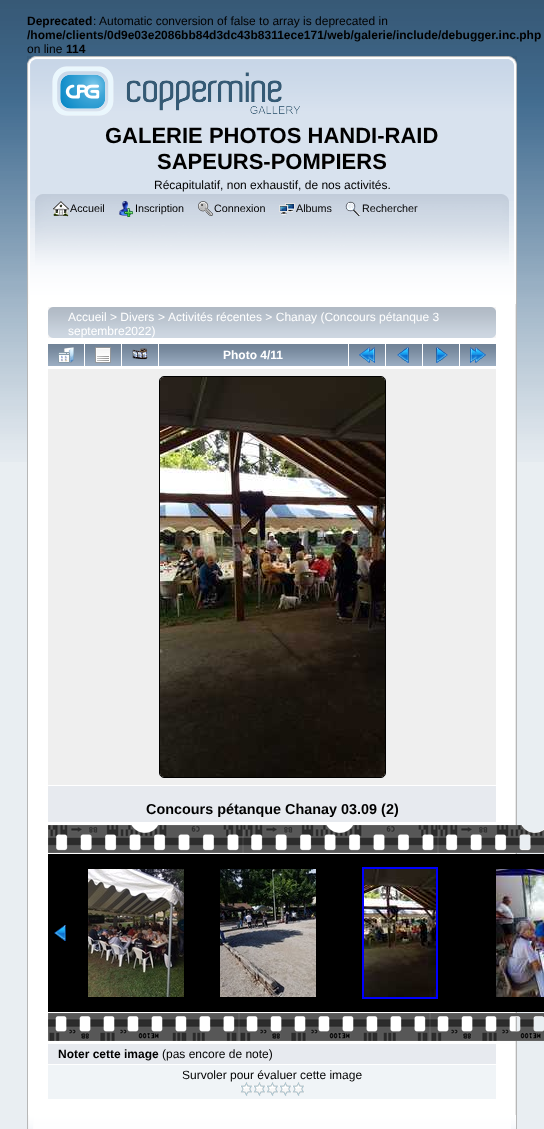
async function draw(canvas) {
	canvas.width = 544;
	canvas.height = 1129;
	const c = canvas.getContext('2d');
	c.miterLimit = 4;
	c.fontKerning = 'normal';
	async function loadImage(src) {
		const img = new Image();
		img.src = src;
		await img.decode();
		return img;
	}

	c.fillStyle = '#e9eef2';
	c.fillRect(0, 0, 544, 1129);
	c.drawImage(await loadImage('img1.png'), 0, 0, 544, 462);
	c.font = 'bold 12px Liberation Sans';
	c.fillStyle = '#000';
	c.fillText('Deprecated', 27, 25);
	c.font = '12px Liberation Sans';
	c.fillText(':', 93, 25);
	c.fillText('Automatic conversion of false to array is deprecated in', 99, 25);
	c.font = 'bold 12px Liberation Sans';
	c.fillText('/home/clients/0d9e03e2086bb84d3dc43b8311ece171/web/galerie/include/debugger.inc.php', 27, 39);
	c.font = '12px Liberation Sans';
	c.fillText('on line', 27, 53);
	c.font = 'bold 12px Liberation Sans';
	c.fillText('114', 66, 53);
	c.drawImage(await loadImage('img2.png'), 27, 56, 482, 138);
	c.drawImage(await loadImage('img3.png'), 509, 56, 8, 138);
	c.drawImage(await loadImage('img4.png'), 52, 66, 248, 50);
	c.font = 'bold 22px Liberation Sans';
	c.fillText('GALERIE PHOTOS HANDI-RAID', 105, 143);
	c.fillText('SAPEURS-POMPIERS', 157, 169);
	c.font = '12px Liberation Sans';
	c.fillText('Récapitulatif, non exhaustif, de nos activités.', 154, 189);
	c.drawImage(await loadImage('img5.png'), 27, 194, 475, 110);
	c.drawImage(await loadImage('img6.png'), 502, 194, 15, 110);
	c.drawImage(await loadImage('img7.png'), 53, 201, 16, 16);
	c.font = '10.75px Liberation Sans';
	c.fillText('Accueil', 70, 212);
	c.drawImage(await loadImage('img8.png'), 119, 201, 14, 16);
	c.fillText('Inscription', 135, 212);
	c.drawImage(await loadImage('img9.png'), 198, 201, 15, 15);
	c.fillText('Connexion', 214, 212);
	c.drawImage(await loadImage('img10.png'), 279, 203, 16, 12);
	c.fillText('Albums', 296, 212);
	c.drawImage(await loadImage('img11.png'), 345, 201, 16, 15);
	c.fillText('Rechercher', 362, 212);
	c.fillStyle = '#fff';
	c.fillRect(28, 304, 487, 811);
	c.fillStyle = '#b7b7b7';
	c.fillRect(27, 304, 1, 811);
	c.drawImage(await loadImage('img12.png'), 515, 304, 2, 811);
	c.drawImage(await loadImage('img13.png'), 48, 307, 443, 31);
	c.drawImage(await loadImage('img14.png'), 491, 307, 5, 31);
	c.font = '12px Liberation Sans';
	c.fillStyle = '#fff';
	for (const [text, x, y] of [
		['Accueil > Divers', 68, 321],
		['>', 158, 321],
		['Activités récentes > Chanay (Concours pétanque 3', 168, 321],
		['septembre2022)', 68, 335],
	]) {
		c.fillText(text, x, y);
	}
	c.drawImage(await loadImage('img15.png'), 48, 344, 36, 22);
	c.drawImage(await loadImage('img16.png'), 58, 347, 16, 16);
	c.drawImage(await loadImage('img15.png'), 85, 344, 36, 22);
	c.drawImage(await loadImage('img17.png'), 95, 347, 16, 16);
	c.drawImage(await loadImage('img15.png'), 122, 344, 36, 22);
	c.drawImage(await loadImage('img18.png'), 132, 348, 16, 12);
	c.drawImage(await loadImage('img19.png'), 159, 344, 189, 22);
	c.font = 'bold 12px Liberation Sans';
	c.fillText('Photo 4/11', 223, 359);
	c.drawImage(await loadImage('img15.png'), 349, 344, 36, 22);
	c.drawImage(await loadImage('img20.png'), 359, 347, 16, 16);
	c.drawImage(await loadImage('img15.png'), 386, 344, 36, 22);
	c.drawImage(await loadImage('img21.png'), 397, 347, 12, 16);
	c.drawImage(await loadImage('img15.png'), 423, 344, 36, 22);
	c.drawImage(await loadImage('img22.png'), 436, 347, 12, 16);
	c.drawImage(await loadImage('img15.png'), 460, 344, 36, 22);
	c.drawImage(await loadImage('img23.png'), 470, 347, 16, 16);
	c.fillStyle = '#efefef';
	c.fillRect(48, 369, 448, 416);
	c.beginPath();
	c.roundRect(159.5, 376.5, 226, 401, 4.5);
	c.strokeStyle = '#000';
	c.stroke();
	c.drawImage(await loadImage('img24.png'), 160, 377, 225, 400);
	c.fillStyle = '#e7eaef';
	c.fillRect(48, 786, 448, 36);
	c.font = 'bold 14.4px Liberation Sans';
	c.fillStyle = '#000';
	c.fillText('Concours pétanque Chanay 03.09 (2)', 146, 814);
	c.drawImage(await loadImage('img25.png'), 48, 825, 496, 28);
	c.fillRect(48, 854, 496, 158);
	c.drawImage(await loadImage('img26.png'), 54, 925, 12, 16);
	c.drawImage(await loadImage('img27.png'), 88, 869, 96, 128);
	c.drawImage(await loadImage('img28.png'), 220, 869, 96, 128);
	c.strokeStyle = '#00f';
	c.lineWidth = 2;
	c.strokeRect(363, 868, 74, 130);
	c.drawImage(await loadImage('img29.png'), 364, 869, 72, 128);
	c.drawImage(await loadImage('img30.png'), 496, 869, 48, 128);
	c.drawImage(await loadImage('img31.png'), 48, 1013, 496, 28);
	c.fillStyle = '#e7eaef';
	c.fillRect(48, 1044, 448, 20);
	c.font = 'bold 12px Liberation Sans';
	c.fillStyle = '#000';
	c.fillText('Noter cette image', 58, 1058);
	c.font = '12px Liberation Sans';
	c.fillText('(pas encore de note)', 162, 1058);
	c.fillStyle = '#f0f4f7';
	c.fillRect(48, 1065, 448, 34);
	c.fillStyle = '#000';
	c.fillText('Survoler pour évaluer cette image', 182, 1079);
	c.drawImage(await loadImage('img32.png'), 240, 1082, 13, 14);
	c.drawImage(await loadImage('img32.png'), 253, 1082, 13, 14);
	c.drawImage(await loadImage('img32.png'), 266, 1082, 13, 14);
	c.drawImage(await loadImage('img32.png'), 279, 1082, 13, 14);
	c.drawImage(await loadImage('img32.png'), 292, 1082, 13, 14);
	c.drawImage(await loadImage('img33.png'), 27, 1115, 484, 14);
	c.drawImage(await loadImage('img34.png'), 511, 1115, 6, 14);
}

draw(document.querySelector('canvas'));
